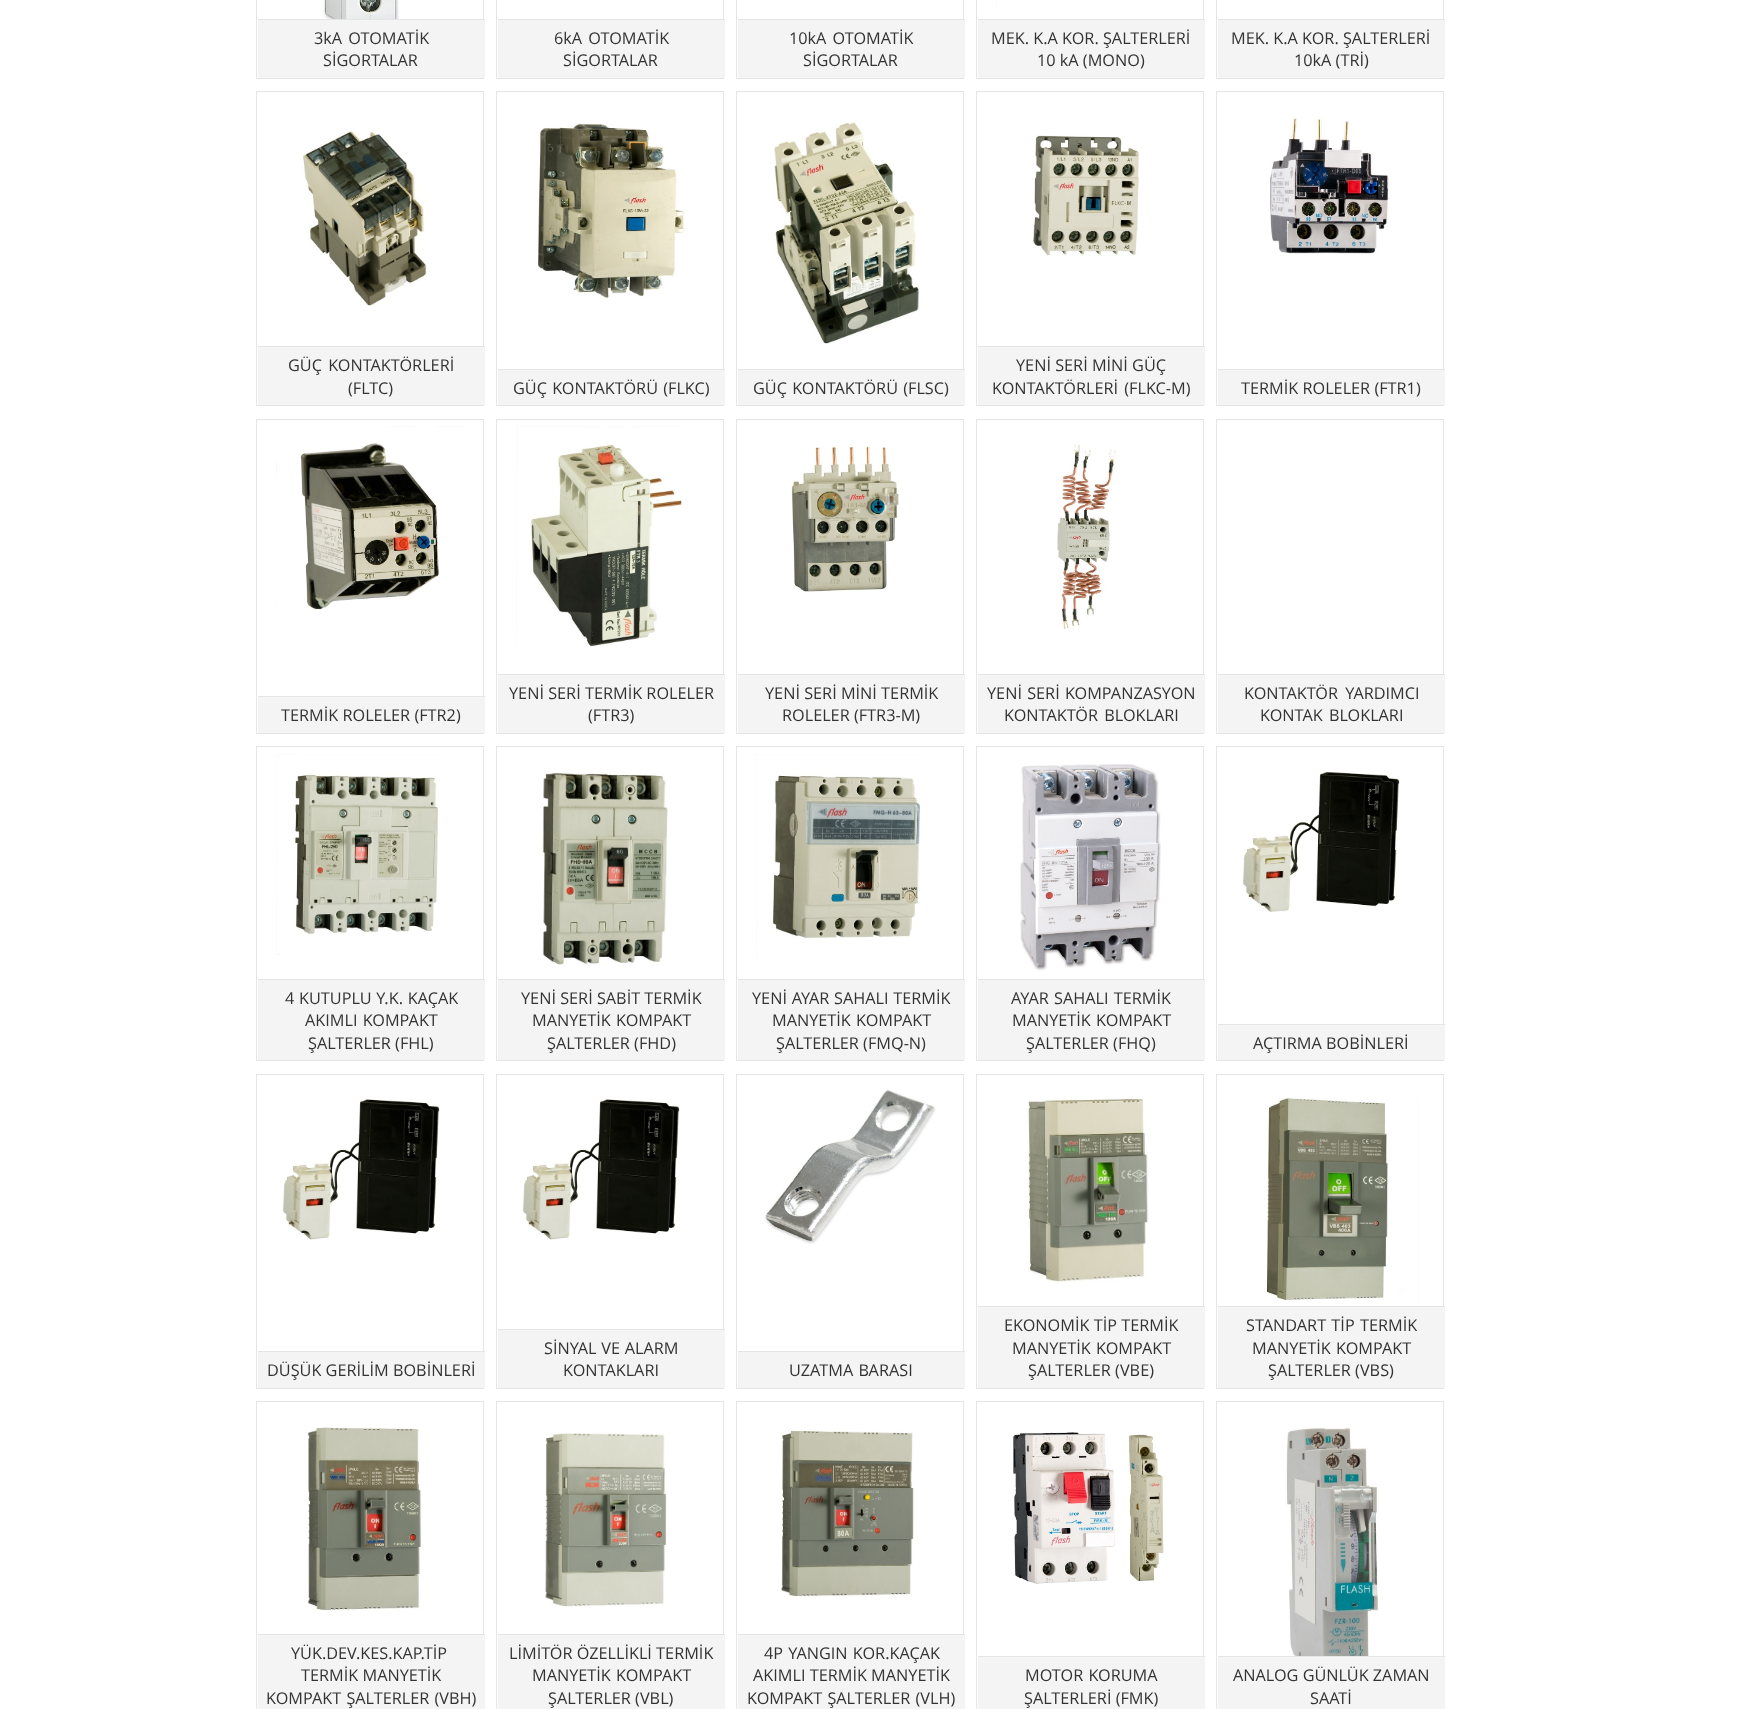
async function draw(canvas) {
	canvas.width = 1762;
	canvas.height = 1709;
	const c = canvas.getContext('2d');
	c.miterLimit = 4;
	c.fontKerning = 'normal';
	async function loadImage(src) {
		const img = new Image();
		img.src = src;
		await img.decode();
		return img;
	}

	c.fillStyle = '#fff';
	c.fillRect(0, 0, 1762, 1709);
	c.strokeStyle = '#e5e5e5';
	c.strokeRect(256.5, -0.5, 227, 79);
	c.drawImage(await loadImage('img1.png'), 323, 0, 76, 19);
	c.fillStyle = '#f4f4f4';
	c.fillRect(258, 20, 227, 58);
	c.fillStyle = '#e5e5e5';
	c.fillRect(258, 19, 227, 1);
	c.wordSpacing = '2px';
	c.font = '16.25px Open Sans';
	c.fillStyle = '#333';
	c.fillText('3kA OTOMATİK', 314, 44);
	c.wordSpacing = '0px';
	c.fillText('SİGORTALAR', 323, 66);
	c.strokeRect(496.5, -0.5, 227, 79);
	c.fillStyle = '#f4f4f4';
	c.fillRect(498, 20, 227, 58);
	c.fillStyle = '#e5e5e5';
	c.fillRect(498, 19, 227, 1);
	c.wordSpacing = '2px';
	c.fillStyle = '#333';
	c.fillText('6kA OTOMATİK', 554, 44);
	c.wordSpacing = '0px';
	c.fillText('SİGORTALAR', 563, 66);
	c.strokeRect(736.5, -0.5, 227, 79);
	c.fillStyle = '#f4f4f4';
	c.fillRect(738, 20, 227, 58);
	c.fillStyle = '#e5e5e5';
	c.fillRect(738, 19, 227, 1);
	c.wordSpacing = '2px';
	c.fillStyle = '#333';
	c.fillText('10kA OTOMATİK', 789, 44);
	c.wordSpacing = '0px';
	c.fillText('SİGORTALAR', 803, 66);
	c.strokeRect(976.5, -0.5, 227, 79);
	for (const [x, y, w, h, color] of [
		[996, 0, 1, 9, '#fafafa'],
		[978, 20, 227, 58, '#f4f4f4'],
		[978, 19, 227, 1, '#e5e5e5'],
	]) {
		c.fillStyle = color;
		c.fillRect(x, y, w, h);
	}
	c.fillStyle = '#333';
	c.fillText('MEK. K.A KOR. ŞALTERLERİ', 991, 44);
	c.fillText('10 kA (MONO)', 1037, 66);
	c.strokeRect(1216.5, -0.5, 227, 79);
	c.fillStyle = '#f4f4f4';
	c.fillRect(1218, 20, 227, 58);
	c.fillStyle = '#e5e5e5';
	c.fillRect(1218, 19, 227, 1);
	c.fillStyle = '#333';
	c.fillText('MEK. K.A KOR. ŞALTERLERİ', 1231, 44);
	c.fillText('10kA (TRİ)', 1294, 66);
	c.strokeRect(256.5, 91.5, 227, 314);
	c.drawImage(await loadImage('img2.png'), 302, 130, 125, 176);
	c.fillStyle = '#f4f4f4';
	c.fillRect(258, 347, 227, 58);
	c.fillStyle = '#e5e5e5';
	c.fillRect(258, 346, 227, 1);
	c.wordSpacing = '2px';
	c.fillStyle = '#333';
	c.fillText('GÜÇ KONTAKTÖRLERİ', 288, 371);
	c.wordSpacing = '0px';
	c.fillText('(FLTC)', 348, 394);
	c.strokeRect(496.5, 91.5, 227, 314);
	c.drawImage(await loadImage('img3.png'), 537, 123, 148, 176);
	c.fillStyle = '#f4f4f4';
	c.fillRect(498, 370, 227, 35);
	c.fillStyle = '#e5e5e5';
	c.fillRect(498, 369, 227, 1);
	c.wordSpacing = '1px';
	c.fillStyle = '#333';
	c.fillText('GÜÇ KONTAKTÖRÜ (FLKC)', 513, 394);
	c.strokeRect(736.5, 91.5, 227, 314);
	c.drawImage(await loadImage('img4.png'), 774, 122, 146, 222);
	c.fillStyle = '#f4f4f4';
	c.fillRect(738, 370, 227, 35);
	c.fillStyle = '#e5e5e5';
	c.fillRect(738, 369, 227, 1);
	c.fillStyle = '#333';
	c.fillText('GÜÇ KONTAKTÖRÜ (FLSC)', 753, 394);
	c.strokeRect(976.5, 91.5, 227, 314);
	c.drawImage(await loadImage('img5.png'), 1033, 134, 107, 122);
	c.fillStyle = '#f4f4f4';
	c.fillRect(978, 347, 227, 58);
	c.fillStyle = '#e5e5e5';
	c.fillRect(978, 346, 227, 1);
	c.wordSpacing = '0px';
	c.fillStyle = '#333';
	c.fillText('YENİ SERİ MİNİ GÜÇ', 1016, 371);
	c.wordSpacing = '2px';
	c.fillText('KONTAKTÖRLERİ (FLKC-M)', 992, 394);
	c.strokeRect(1216.5, 91.5, 227, 314);
	c.drawImage(await loadImage('img6.png'), 1270, 117, 119, 137);
	c.fillStyle = '#f4f4f4';
	c.fillRect(1218, 370, 227, 35);
	c.fillStyle = '#e5e5e5';
	c.fillRect(1218, 369, 227, 1);
	c.wordSpacing = '0px';
	c.fillStyle = '#333';
	c.fillText('TERMİK ROLELER (FTR1)', 1241, 394);
	c.strokeRect(256.5, 419.5, 227, 314);
	c.drawImage(await loadImage('img7.png'), 276, 426, 188, 184);
	c.fillStyle = '#f4f4f4';
	c.fillRect(258, 697, 227, 36);
	c.fillStyle = '#e5e5e5';
	c.fillRect(258, 696, 227, 1);
	c.fillStyle = '#333';
	c.fillText('TERMİK ROLELER (FTR2)', 281, 721);
	c.strokeRect(496.5, 419.5, 227, 314);
	c.drawImage(await loadImage('img8.png'), 516, 426, 167, 221);
	c.fillStyle = '#f4f4f4';
	c.fillRect(498, 675, 227, 58);
	c.fillStyle = '#e5e5e5';
	c.fillRect(498, 674, 227, 1);
	c.fillStyle = '#333';
	c.fillText('YENİ SERİ TERMİK ROLELER', 509, 699);
	c.fillText('(FTR3)', 588, 721);
	c.strokeRect(736.5, 419.5, 227, 314);
	c.drawImage(await loadImage('img9.png'), 791, 446, 108, 146);
	c.fillStyle = '#f4f4f4';
	c.fillRect(738, 675, 227, 58);
	c.fillStyle = '#e5e5e5';
	c.fillRect(738, 674, 227, 1);
	c.fillStyle = '#333';
	c.fillText('YENİ SERİ MİNİ TERMİK', 765, 699);
	c.fillText('ROLELER (FTR3-M)', 782, 721);
	c.strokeRect(976.5, 419.5, 227, 314);
	c.drawImage(await loadImage('img10.png'), 1057, 444, 60, 185);
	c.fillStyle = '#f4f4f4';
	c.fillRect(978, 675, 227, 58);
	c.fillStyle = '#e5e5e5';
	c.fillRect(978, 674, 227, 1);
	c.wordSpacing = '1px';
	c.fillStyle = '#333';
	c.fillText('YENİ SERİ KOMPANZASYON', 987, 699);
	c.wordSpacing = '2px';
	c.fillText('KONTAKTÖR BLOKLARI', 1004, 721);
	c.strokeRect(1216.5, 419.5, 227, 314);
	c.fillStyle = '#f4f4f4';
	c.fillRect(1218, 675, 227, 58);
	c.fillStyle = '#e5e5e5';
	c.fillRect(1218, 674, 227, 1);
	c.wordSpacing = '3px';
	c.fillStyle = '#333';
	c.fillText('KONTAKTÖR YARDIMCI', 1244, 699);
	c.wordSpacing = '2px';
	c.fillText('KONTAK BLOKLARI', 1260, 721);
	c.strokeRect(256.5, 746.5, 227, 314);
	c.drawImage(await loadImage('img11.png'), 276, 754, 163, 201);
	c.fillStyle = '#f4f4f4';
	c.fillRect(258, 980, 227, 80);
	c.fillStyle = '#e5e5e5';
	c.fillRect(258, 979, 227, 1);
	c.wordSpacing = '0.5px';
	c.fillStyle = '#333';
	c.fillText('4 KUTUPLU Y.K. KAÇAK', 285, 1004);
	c.wordSpacing = '1px';
	c.fillText('AKIMLI KOMPAKT', 305, 1026);
	c.wordSpacing = '0px';
	c.fillText('ŞALTERLER (FHL)', 308, 1049);
	c.strokeRect(496.5, 746.5, 227, 314);
	c.drawImage(await loadImage('img12.png'), 542, 772, 126, 193);
	c.fillStyle = '#f4f4f4';
	c.fillRect(498, 980, 227, 80);
	c.fillStyle = '#e5e5e5';
	c.fillRect(498, 979, 227, 1);
	c.fillStyle = '#333';
	c.fillText('YENİ SERİ SABİT TERMİK', 521, 1004);
	c.wordSpacing = '1px';
	c.fillText('MANYETİK KOMPAKT', 532, 1026);
	c.wordSpacing = '0px';
	c.fillText('ŞALTERLER (FHD)', 547, 1049);
	c.strokeRect(736.5, 746.5, 227, 314);
	c.drawImage(await loadImage('img13.png'), 756, 754, 165, 207);
	c.fillStyle = '#f4f4f4';
	c.fillRect(738, 980, 227, 80);
	c.fillStyle = '#e5e5e5';
	c.fillRect(738, 979, 227, 1);
	c.wordSpacing = '0.5px';
	c.fillStyle = '#333';
	c.fillText('YENİ AYAR SAHALI TERMİK', 752, 1004);
	c.wordSpacing = '1px';
	c.fillText('MANYETİK KOMPAKT', 772, 1026);
	c.wordSpacing = '0px';
	c.fillText('ŞALTERLER (FMQ-N)', 776, 1049);
	c.strokeRect(976.5, 746.5, 227, 314);
	c.drawImage(await loadImage('img14.png'), 1020, 764, 141, 207);
	c.fillStyle = '#f4f4f4';
	c.fillRect(978, 980, 227, 80);
	c.fillStyle = '#e5e5e5';
	c.fillRect(978, 979, 227, 1);
	c.wordSpacing = '1px';
	c.fillStyle = '#333';
	c.fillText('AYAR SAHALI TERMİK', 1011, 1004);
	c.fillText('MANYETİK KOMPAKT', 1012, 1026);
	c.wordSpacing = '0px';
	c.fillText('ŞALTERLER (FHQ)', 1026, 1049);
	c.strokeRect(1216.5, 746.5, 227, 314);
	c.drawImage(await loadImage('img15.png'), 1242, 771, 158, 142);
	c.fillStyle = '#f4f4f4';
	c.fillRect(1218, 1025, 227, 35);
	c.fillStyle = '#e5e5e5';
	c.fillRect(1218, 1024, 227, 1);
	c.fillStyle = '#333';
	c.fillText('AÇTIRMA BOBİNLERİ', 1253, 1049);
	c.strokeRect(256.5, 1074.5, 227, 314);
	c.drawImage(await loadImage('img16.png'), 282, 1099, 158, 141);
	c.fillStyle = '#f4f4f4';
	c.fillRect(258, 1352, 227, 36);
	c.fillStyle = '#e5e5e5';
	c.fillRect(258, 1351, 227, 1);
	c.fillStyle = '#333';
	c.fillText('DÜŞÜK GERİLİM BOBİNLERİ', 267, 1376);
	c.strokeRect(496.5, 1074.5, 227, 314);
	c.drawImage(await loadImage('img16.png'), 522, 1099, 158, 141);
	c.fillStyle = '#f4f4f4';
	c.fillRect(498, 1330, 227, 58);
	c.fillStyle = '#e5e5e5';
	c.fillRect(498, 1329, 227, 1);
	c.wordSpacing = '0.5px';
	c.fillStyle = '#333';
	c.fillText('SİNYAL VE ALARM', 544, 1354);
	c.wordSpacing = '0px';
	c.fillText('KONTAKLARI', 563, 1376);
	c.strokeRect(736.5, 1074.5, 227, 314);
	c.drawImage(await loadImage('img17.png'), 764, 1090, 172, 154);
	c.fillStyle = '#f4f4f4';
	c.fillRect(738, 1352, 227, 36);
	c.fillStyle = '#e5e5e5';
	c.fillRect(738, 1351, 227, 1);
	c.wordSpacing = '1px';
	c.fillStyle = '#333';
	c.fillText('UZATMA BARASI', 789, 1376);
	c.strokeRect(976.5, 1074.5, 227, 314);
	c.drawImage(await loadImage('img18.png'), 1027, 1098, 122, 184);
	c.fillStyle = '#f4f4f4';
	c.fillRect(978, 1307, 227, 81);
	c.fillStyle = '#e5e5e5';
	c.fillRect(978, 1306, 227, 1);
	c.wordSpacing = '0px';
	c.fillStyle = '#333';
	c.fillText('EKONOMİK TİP TERMİK', 1004, 1331);
	c.wordSpacing = '1px';
	c.fillText('MANYETİK KOMPAKT', 1012, 1354);
	c.wordSpacing = '0px';
	c.fillText('ŞALTERLER (VBE)', 1028, 1376);
	c.strokeRect(1216.5, 1074.5, 227, 314);
	c.drawImage(await loadImage('img19.png'), 1266, 1097, 153, 209);
	c.fillStyle = '#f4f4f4';
	c.fillRect(1218, 1307, 227, 81);
	c.fillStyle = '#e5e5e5';
	c.fillRect(1218, 1306, 227, 1);
	c.wordSpacing = '1px';
	c.fillStyle = '#333';
	c.fillText('STANDART TİP TERMİK', 1246, 1331);
	c.fillText('MANYETİK KOMPAKT', 1252, 1354);
	c.wordSpacing = '0px';
	c.fillText('ŞALTERLER (VBS)', 1268, 1376);
	c.strokeRect(256.5, 1401.5, 227, 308);
	c.drawImage(await loadImage('img20.png'), 307, 1427, 115, 184);
	c.fillStyle = '#f4f4f4';
	c.fillRect(258, 1635, 227, 74);
	c.fillStyle = '#e5e5e5';
	c.fillRect(258, 1634, 227, 1);
	c.fillStyle = '#333';
	c.fillText('YÜK.DEV.KES.KAP.TİP', 291, 1659);
	c.fillText('TERMİK MANYETİK', 301, 1681);
	c.wordSpacing = '1px';
	c.fillText('KOMPAKT ŞALTERLER (VBH)', 266, 1704);
	c.strokeRect(496.5, 1401.5, 227, 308);
	c.drawImage(await loadImage('img21.png'), 545, 1433, 122, 174);
	c.fillStyle = '#f4f4f4';
	c.fillRect(498, 1635, 227, 74);
	c.fillStyle = '#e5e5e5';
	c.fillRect(498, 1634, 227, 1);
	c.wordSpacing = '0px';
	c.fillStyle = '#333';
	c.fillText('LİMİTÖR ÖZELLİKLİ TERMİK', 509, 1659);
	c.wordSpacing = '1px';
	c.fillText('MANYETİK KOMPAKT', 532, 1681);
	c.wordSpacing = '0px';
	c.fillText('ŞALTERLER (VBL)', 548, 1704);
	c.strokeRect(736.5, 1401.5, 227, 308);
	c.drawImage(await loadImage('img22.png'), 781, 1430, 133, 167);
	c.fillStyle = '#f4f4f4';
	c.fillRect(738, 1635, 227, 74);
	c.fillStyle = '#e5e5e5';
	c.fillRect(738, 1634, 227, 1);
	c.wordSpacing = '1px';
	c.fillStyle = '#333';
	c.fillText('4P YANGIN KOR.KAÇAK', 764, 1659);
	c.wordSpacing = '0px';
	c.fillText('AKIMLI TERMİK MANYETİK', 753, 1681);
	c.wordSpacing = '1px';
	c.fillText('KOMPAKT ŞALTERLER (VLH)', 747, 1704);
	c.strokeRect(976.5, 1401.5, 227, 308);
	c.drawImage(await loadImage('img23.png'), 1013, 1432, 151, 152);
	c.fillStyle = '#f4f4f4';
	c.fillRect(978, 1657, 227, 52);
	c.fillStyle = '#e5e5e5';
	c.fillRect(978, 1656, 227, 1);
	c.fillStyle = '#333';
	c.fillText('MOTOR KORUMA', 1025, 1681);
	c.wordSpacing = '0px';
	c.fillText('ŞALTERLERİ (FMK)', 1024, 1704);
	c.strokeRect(1216.5, 1401.5, 227, 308);
	c.drawImage(await loadImage('img24.png'), 1286, 1427, 93, 229);
	c.fillStyle = '#f4f4f4';
	c.fillRect(1218, 1657, 227, 52);
	c.fillStyle = '#e5e5e5';
	c.fillRect(1218, 1656, 227, 1);
	c.fillStyle = '#333';
	c.fillText('ANALOG GÜNLÜK ZAMAN', 1233, 1681);
	c.fillText('SAATİ', 1310, 1704);
}

draw(document.querySelector('canvas'));
